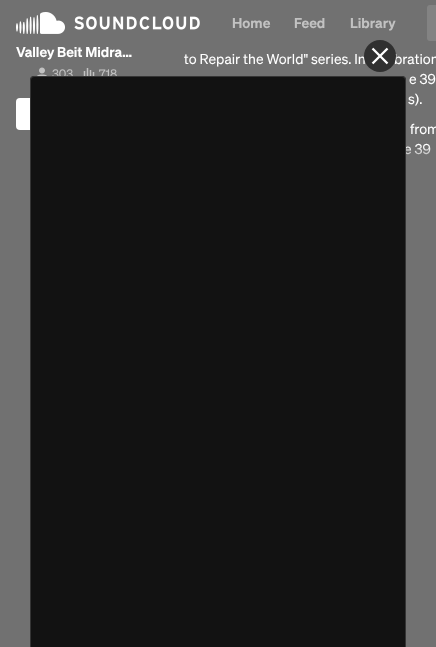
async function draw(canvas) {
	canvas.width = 436;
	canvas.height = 647;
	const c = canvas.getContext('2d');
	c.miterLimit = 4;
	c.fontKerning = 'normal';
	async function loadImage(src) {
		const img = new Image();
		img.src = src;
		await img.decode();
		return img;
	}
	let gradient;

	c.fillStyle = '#717171';
	c.fillRect(0, 0, 436, 647);
	c.drawImage(await loadImage('img1.png'), 16, 12, 184, 22);
	c.font = '600 14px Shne';
	c.fillStyle = '#c2c2c2';
	for (const [text, x, y] of [
		['Home', 232, 28],
		['Feed', 294, 28],
		['Library', 350, 28],
	]) {
		c.fillText(text, x, y);
	}
	c.fillStyle = '#838383';
	c.beginPath();
	c.roundRect(427, 5, 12, 36, 3);
	c.fill();
	c.fillStyle = '#fff';
	c.fillText('Valley Beit Midra…', 16, 57);
	c.drawImage(await loadImage('img2.png'), 37, 67, 10, 9);
	c.font = '12px Shne';
	c.fillStyle = '#c2c2c2';
	c.fillText('303', 52, 78);
	c.drawImage(await loadImage('img3.png'), 83, 68, 12, 8);
	c.fillText('718', 99, 78);
	c.fillStyle = '#fff';
	c.beginPath();
	c.roundRect(16, 98, 120, 32, 4);
	c.fill();
	c.font = '14px Shne';
	for (const [text, x, y] of [
		['to Repair the World" series. In', 184, 64],
		['bration', 394, 64],
		['e 39', 409, 84],
		['s).', 408, 104],
		['from', 410, 134],
		['e 39', 404, 154],
	]) {
		c.fillText(text, x, y);
	}
	gradient = c.createLinearGradient(376, 145, 376, 169);
	gradient.addColorStop(0, '#71717100');
	gradient.addColorStop(1, '#717171');
	c.fillStyle = gradient;
	c.fillRect(406, 146, 24, 9);
	c.fillStyle = '#303030';
	c.beginPath();
	c.arc(380, 56, 16, 0, 2 * Math.PI);
	c.fill();
	c.drawImage(await loadImage('img4.png'), 371, 47, 18, 18);
	c.fillStyle = '#121212';
	c.beginPath();
	c.roundRect(30, 76, 376, 571, [4, 4, 0, 0]);
	c.fill();
	c.beginPath();
	c.roundRect(30.5, 76.5, 375, 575, 3.5);
	c.strokeStyle = '#ffffff26';
	c.stroke();
}

draw(document.querySelector('canvas'));
